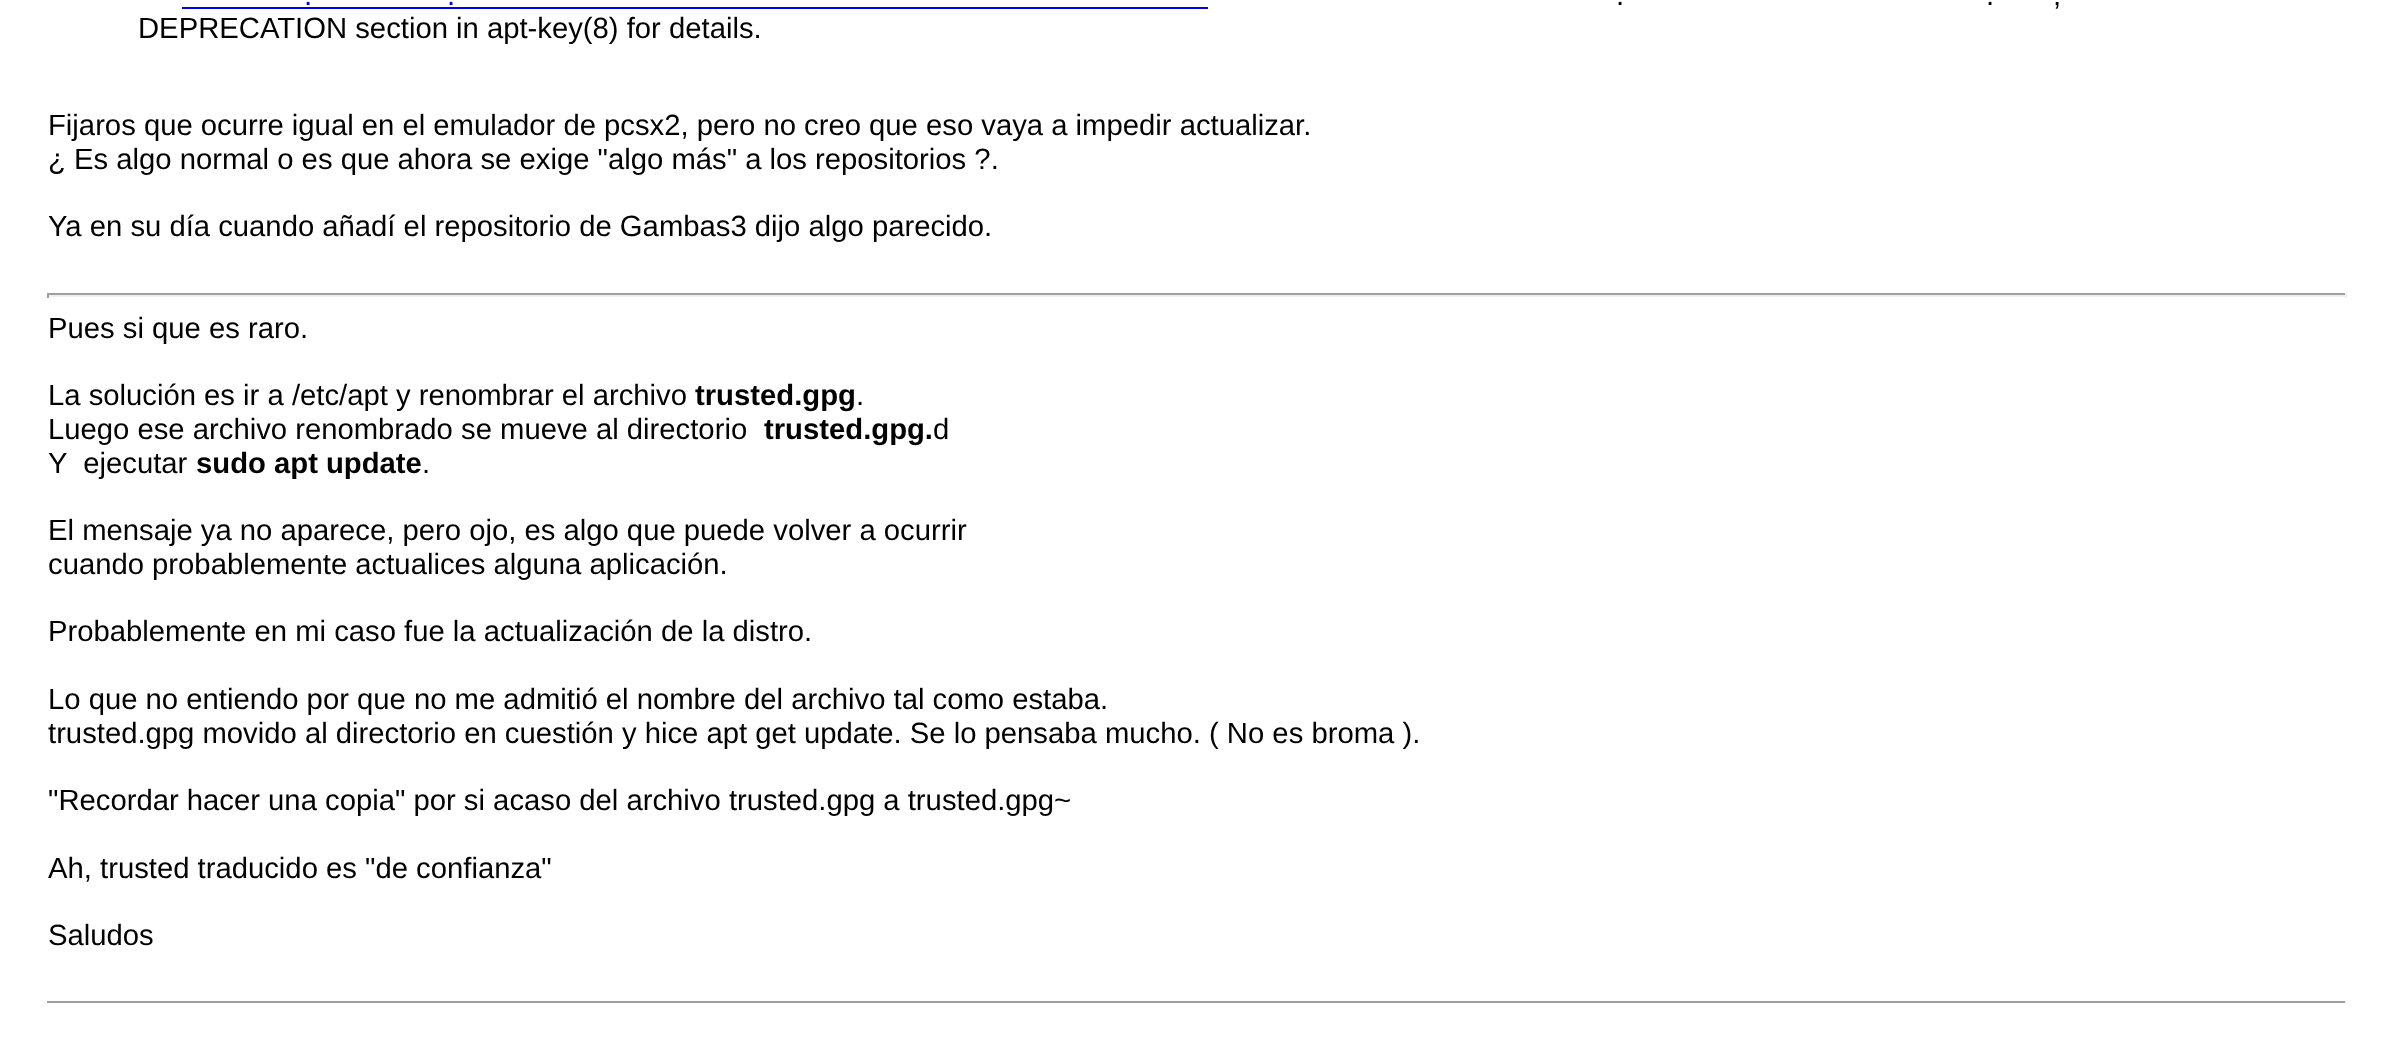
async function draw(canvas) {
	canvas.width = 2393;
	canvas.height = 1040;
	const c = canvas.getContext('2d');
	c.miterLimit = 4;
	c.fontKerning = 'normal';

	c.fillStyle = '#fff';
	c.fillRect(0, 0, 2393, 1040);
	c.font = '29.25px Liberation Sans';
	c.fillStyle = '#00e';
	c.fillText('.', 304, 5);
	c.fillRect(182, 7, 1026, 2);
	c.fillText('.', 447, 5);
	c.fillStyle = '#000';
	for (const [text, x, y] of [
		['.', 1616, 5],
		['.', 1986, 5],
		[',', 2053, 5],
		['DEPRECATION section in apt-key(8) for details.', 138, 38],
		['Fijaros que ocurre igual en el emulador de pcsx2, pero no creo que eso vaya a impedir actualizar.', 48, 135],
		['¿ Es algo normal o es que ahora se exige "algo más" a los repositorios ?.', 48, 169],
		['Ya en su día cuando añadí el repositorio de Gambas3 dijo algo parecido.', 48, 236],
	]) {
		c.fillText(text, x, y);
	}
	for (const [x, y, w, h, color] of [
		[47, 293, 2300, 2, '#9f9f9f'],
		[2345, 293, 2, 5, '#eee'],
		[47, 295, 2300, 2, '#eee'],
		[47, 293, 2, 5, '#9f9f9f'],
	]) {
		c.fillStyle = color;
		c.fillRect(x, y, w, h);
	}
	c.fillStyle = '#000';
	c.fillText('Pues si que es raro.', 48, 338);
	c.fillText('La solución es ir a /etc/apt y renombrar el archivo', 48, 405);
	c.font = 'bold 29.25px Liberation Sans';
	c.fillText('trusted.gpg', 695, 405);
	c.font = '29.25px Liberation Sans';
	c.fillText('.', 856, 405);
	c.fillText('Luego ese archivo renombrado se mueve al directorio', 48, 439);
	c.font = 'bold 29.25px Liberation Sans';
	c.fillText('trusted.gpg.', 764, 439);
	c.font = '29.25px Liberation Sans';
	c.fillText('d', 933, 439);
	c.fillText('Y  ejecutar', 48, 473);
	c.font = 'bold 29.25px Liberation Sans';
	c.fillText('sudo apt update', 196, 473);
	c.font = '29.25px Liberation Sans';
	for (const [text, x, y] of [
		['.', 422, 473],
		['El mensaje ya no aparece, pero ojo, es algo que puede volver a ocurrir', 48, 540],
		['cuando probablemente actualices alguna aplicación.', 48, 574],
		['Probablemente en mi caso fue la actualización de la distro.', 48, 641],
		['Lo que no entiendo por que no me admitió el nombre del archivo tal como estaba.', 48, 709],
		['trusted.gpg movido al directorio en cuestión y hice apt get update. Se lo pensaba mucho. ( No es broma ).', 48, 743],
		['"Recordar hacer una copia" por si acaso del archivo trusted.gpg a trusted.gpg~', 48, 810],
		['Ah, trusted traducido es "de confianza"', 48, 878],
		['Saludos', 48, 945],
	]) {
		c.fillText(text, x, y);
	}
	c.fillStyle = '#9f9f9f';
	c.fillRect(47, 1001, 2300, 2);
	c.fillStyle = '#eee';
	c.fillRect(2345, 1001, 2, 2);
}

draw(document.querySelector('canvas'));
